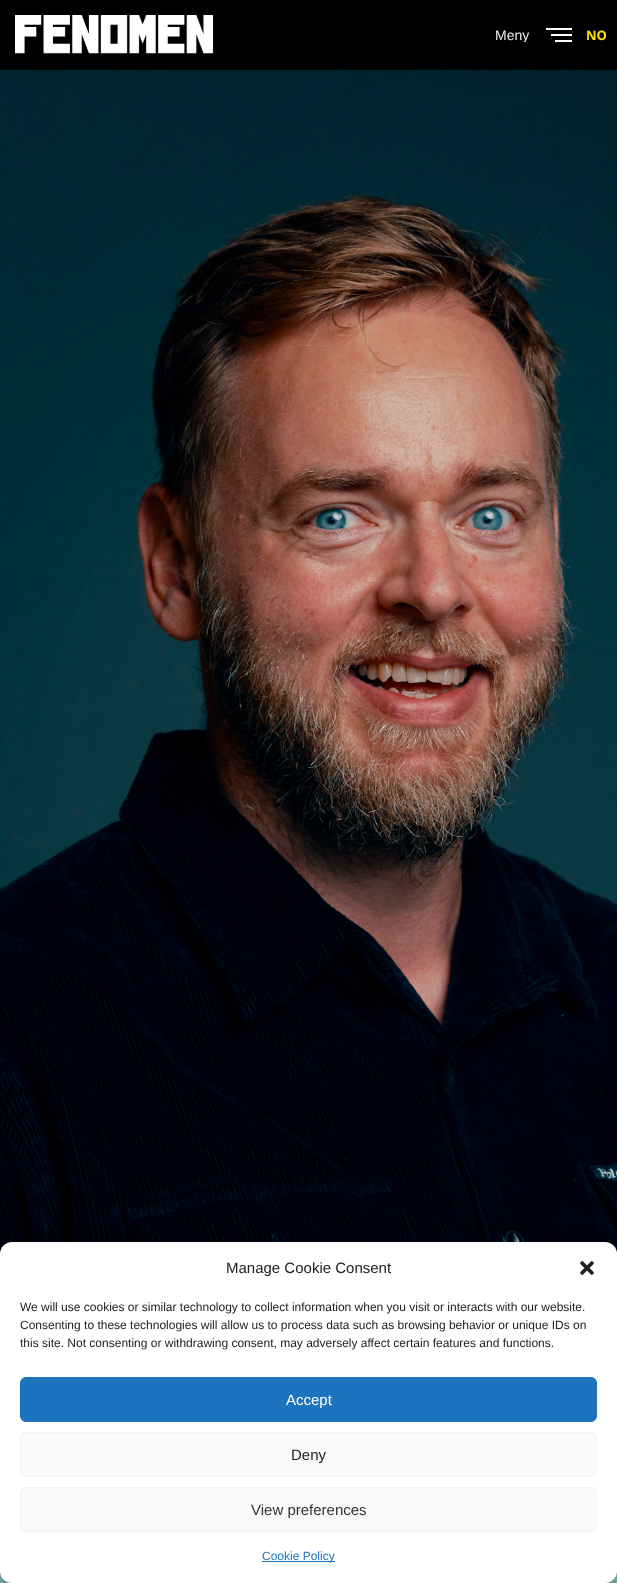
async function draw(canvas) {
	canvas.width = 617;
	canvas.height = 1583;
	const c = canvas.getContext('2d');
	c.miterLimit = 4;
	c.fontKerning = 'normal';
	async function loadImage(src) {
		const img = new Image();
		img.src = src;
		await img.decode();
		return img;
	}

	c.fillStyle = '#8dc6bf';
	c.fillRect(0, 0, 617, 1583);
	c.fillStyle = '#000';
	c.fillRect(0, 0, 617, 70);
	c.drawImage(await loadImage('img1.png'), 15, 15, 199, 39);
	c.save();
	c.beginPath();
	c.rect(495, 28, 36, 14);
	c.clip();
	c.font = '14px Liberation Sans';
	c.fillStyle = '#eee';
	c.fillText('Meny', 495, 40);
	c.restore();
	for (const [x, y, w, h, color] of [
		[546, 28, 26, 2, '#fff'],
		[551, 34, 21, 2, '#fff'],
		[555, 40, 17, 2, '#fff'],
	]) {
		c.fillStyle = color;
		c.fillRect(x, y, w, h);
	}
	c.font = 'bold 13px Noto Sans';
	c.fillStyle = '#ffe102';
	c.fillText('NO', 586, 40);
	c.drawImage(await loadImage('img2.png'), 0, 70, 617, 1184);
	c.fillStyle = '#0000003b';
	c.filter = 'blur(3px)';
	c.beginPath();
	c.roundRect(0, 1248, 617, 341, 12);
	c.fill();
	c.filter = 'none';
	c.fillStyle = '#00000030';
	c.filter = 'blur(10px)';
	c.beginPath();
	c.roundRect(0, 1252, 617, 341, 12);
	c.fill();
	c.filter = 'none';
	c.fillStyle = '#fff';
	c.beginPath();
	c.roundRect(0, 1242, 617, 341, 12);
	c.fill();
	c.font = '15px Liberation Sans';
	c.fillStyle = '#222';
	c.fillText('Manage Cookie Consent', 226, 1273);
	c.drawImage(await loadImage('img3.png'), 580, 1261, 14, 14);
	c.font = '12px Liberation Sans';
	for (const [text, x, y] of [
		['We will use cookies or similar technology to collect information when you visit or interacts with our website.', 20, 1311],
		['Consenting to these technologies will allow us to process data such as browsing behavior or unique IDs on', 20, 1329],
		['this site. Not consenting or withdrawing consent, may adversely affect certain features and functions.', 20, 1347],
	]) {
		c.fillText(text, x, y);
	}
	c.fillStyle = '#1e73be';
	c.beginPath();
	c.roundRect(20.5, 1377.5, 576, 44, 5.5);
	c.fill();
	c.strokeStyle = '#1e73be';
	c.stroke();
	c.font = '15px Liberation Sans';
	c.fillStyle = '#fff';
	c.fillText('Accept', 286, 1405);
	c.fillStyle = '#f9f9f9';
	c.beginPath();
	c.roundRect(20.5, 1432.5, 576, 44, 5.5);
	c.fill();
	c.strokeStyle = '#f2f2f2';
	c.stroke();
	c.fillStyle = '#222';
	c.fillText('Deny', 291, 1460);
	c.fillStyle = '#f9f9f9';
	c.beginPath();
	c.roundRect(20.5, 1487.5, 576, 44, 5.5);
	c.fill();
	c.stroke();
	c.fillStyle = '#333';
	c.fillText('View preferences', 251, 1515);
	c.fillStyle = '#1e73be';
	c.fillRect(262, 1561, 73, 1);
	c.font = '12px Liberation Sans';
	c.fillText('Cookie Policy', 262, 1560);
}

draw(document.querySelector('canvas'));
